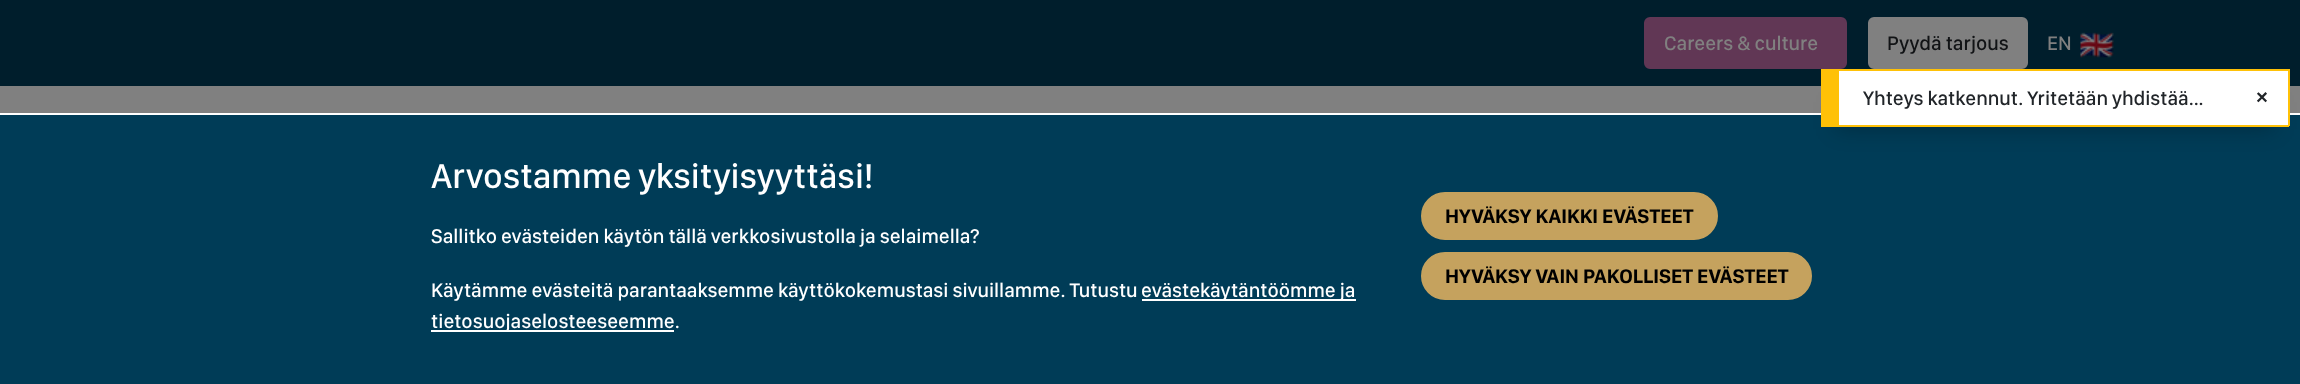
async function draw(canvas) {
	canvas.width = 2300;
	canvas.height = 384;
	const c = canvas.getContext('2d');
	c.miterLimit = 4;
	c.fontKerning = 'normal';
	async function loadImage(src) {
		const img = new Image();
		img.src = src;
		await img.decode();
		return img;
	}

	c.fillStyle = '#808080';
	c.fillRect(0, 0, 2300, 384);
	c.fillStyle = '#001e2c';
	c.fillRect(0, 0, 2300, 86);
	c.fillStyle = '#613755';
	c.beginPath();
	c.roundRect(1645, 18, 201, 50, 5);
	c.fill();
	c.strokeStyle = '#613755';
	c.lineWidth = 2;
	c.stroke();
	c.font = '500 20.4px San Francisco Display';
	c.fillStyle = '#808080';
	c.fillText('Careers & culture', 1664, 50);
	c.beginPath();
	c.roundRect(1869, 18, 158, 50, 5);
	c.fill();
	c.strokeStyle = '#808080';
	c.stroke();
	c.fillStyle = '#111315';
	c.fillText('Pyydä tarjous', 1887, 50);
	c.fillStyle = '#808080';
	c.fillText('EN', 2047, 50);
	c.drawImage(await loadImage('img1.png'), 2080, 32, 34, 26);
	c.fillStyle = '#003c57';
	c.fillRect(0, 115, 2300, 269);
	c.fillStyle = '#fff';
	c.fillRect(0, 113, 2300, 2);
	c.font = '500 35.75px San Francisco Display';
	c.fillText('Arvostamme yksityisyyttäsi!', 431, 188);
	c.font = '500 20.4px San Francisco Display';
	c.fillText('Sallitko evästeiden käytön tällä verkkosivustolla ja selaimella?', 431, 243);
	c.fillText('Käytämme evästeitä parantaaksemme käyttökokemustasi sivuillamme. Tutustu', 431, 297);
	c.fillRect(1142, 299, 214, 2);
	c.fillText('evästekäytäntöömme ja', 1141, 297);
	c.fillRect(431, 330, 243, 2);
	c.fillText('tietosuojaselosteeseemme.', 431, 328);
	c.fillStyle = '#c5a25e';
	c.beginPath();
	c.roundRect(1422, 193, 295, 46, 23);
	c.fill();
	c.strokeStyle = '#c5a25e';
	c.stroke();
	c.font = 'bold 20.4px San Francisco Display';
	c.fillStyle = '#000';
	c.fillText('HYVÄKSY KAIKKI EVÄSTEET', 1445, 223);
	c.fillStyle = '#c5a25e';
	c.beginPath();
	c.roundRect(1422, 253, 389, 46, 23);
	c.fill();
	c.stroke();
	c.fillStyle = '#000';
	c.fillText('HYVÄKSY VAIN PAKOLLISET EVÄSTEET', 1445, 283);
	c.fillStyle = '#00000040';
	c.filter = 'blur(10.5px)';
	c.beginPath();
	c.rect(1836, 102, 438, 27);
	c.fill();
	c.filter = 'none';
	for (const [x, y, w, h, color] of [
		[1839, 71, 449, 54, '#fff'],
		[1839, 69, 450, 2, '#ffc107'],
		[2288, 69, 2, 57, '#ffc107'],
		[1821, 125, 468, 2, '#ffc107'],
		[1821, 69, 18, 56, '#ffc107'],
	]) {
		c.fillStyle = color;
		c.fillRect(x, y, w, h);
	}
	c.font = '500 20.4px San Francisco Display';
	c.fillStyle = '#212529';
	c.fillText('Yhteys katkennut. Yritetään yhdistää...', 1863, 105);
	c.font = 'bold 20.4px Liberation Sans';
	c.fillText('×', 2256, 104);
}

draw(document.querySelector('canvas'));
